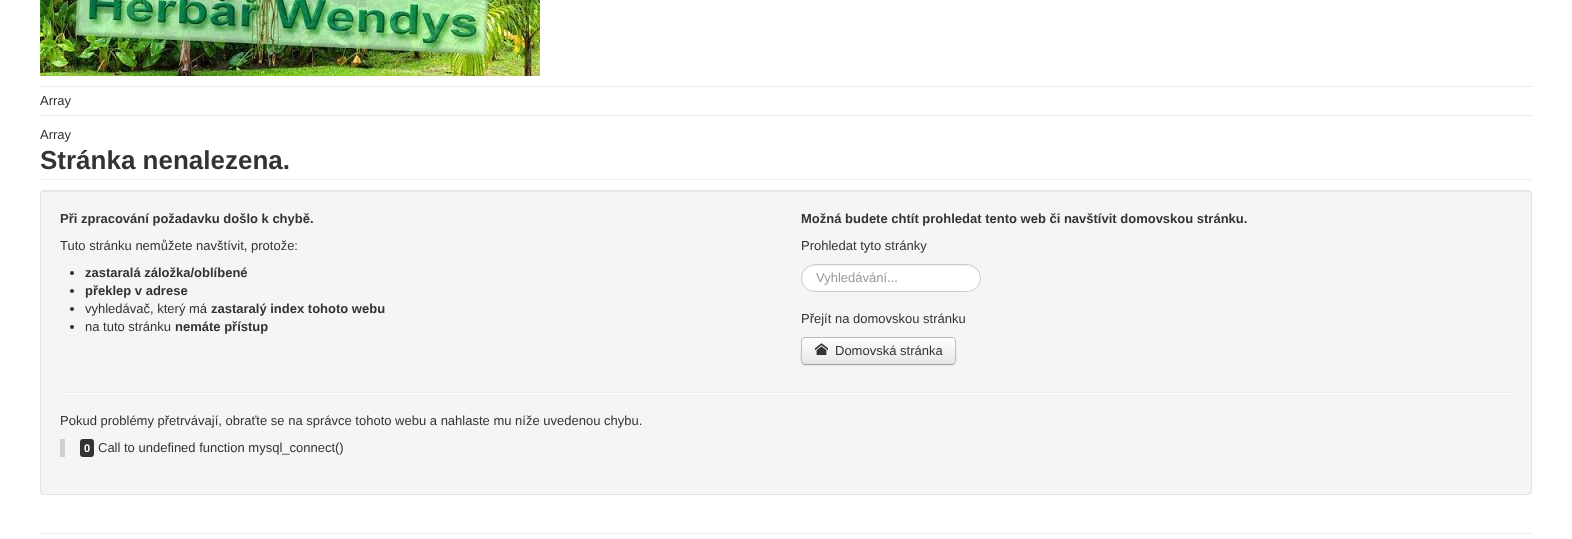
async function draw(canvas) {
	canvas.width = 1572;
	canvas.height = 539;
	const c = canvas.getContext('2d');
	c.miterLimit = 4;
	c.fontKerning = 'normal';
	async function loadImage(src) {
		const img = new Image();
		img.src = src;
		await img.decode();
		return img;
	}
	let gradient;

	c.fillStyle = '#fff';
	c.fillRect(0, 0, 1572, 539);
	c.drawImage(await loadImage('img1.png'), 40, 0, 500, 76);
	c.fillStyle = '#ececec';
	c.fillRect(40, 86, 1492, 1);
	c.fillRect(40, 115, 1492, 1);
	c.font = '13px Liberation Sans';
	c.fillStyle = '#333';
	c.fillText('Array', 40, 105);
	c.fillText('Array', 40, 139);
	c.fillStyle = '#eee';
	c.fillRect(40, 179, 1492, 1);
	c.font = 'bold 26px Liberation Sans';
	c.fillStyle = '#333';
	c.fillText('Stránka nenalezena.', 40, 169);
	c.fillStyle = '#f5f5f5';
	c.beginPath();
	c.roundRect(40, 190, 1492, 305, 4);
	c.fill();
	c.fillStyle = '#e9e9e9';
	c.beginPath();
	c.moveTo(44, 192);
	c.lineTo(1528, 192);
	c.bezierCurveTo(1530, 192, 1531, 193, 1531, 195);
	c.lineTo(1531, 194);
	c.bezierCurveTo(1531, 192, 1530, 191, 1528, 191);
	c.lineTo(44, 191);
	c.bezierCurveTo(42, 191, 41, 192, 41, 194);
	c.lineTo(41, 195);
	c.bezierCurveTo(41, 193, 42, 192, 44, 192);
	c.closePath();
	c.fill();
	c.beginPath();
	c.roundRect(40.5, 190.5, 1491, 304, 3.5);
	c.strokeStyle = '#e3e3e3';
	c.stroke();
	c.font = 'bold 13px Liberation Sans';
	c.fillStyle = '#333';
	c.fillText('Při zpracování požadavku došlo k chybě.', 60, 223);
	c.font = '13px Liberation Sans';
	c.fillText('Tuto stránku nemůžete navštívit, protože:', 60, 250);
	c.beginPath();
	c.arc(72, 273, 2, 0, 2 * Math.PI);
	c.fill();
	c.font = 'bold 13px Liberation Sans';
	c.fillText('zastaralá záložka/oblíbené', 85, 277);
	c.beginPath();
	c.arc(72, 291, 2, 0, 2 * Math.PI);
	c.fill();
	c.fillText('překlep v adrese', 85, 295);
	c.beginPath();
	c.arc(72, 309, 2, 0, 2 * Math.PI);
	c.fill();
	c.font = '13px Liberation Sans';
	c.fillText('vyhledávač, který má', 85, 313);
	c.font = 'bold 13px Liberation Sans';
	c.fillText('zastaralý index tohoto webu', 211, 313);
	c.beginPath();
	c.arc(72, 327, 2, 0, 2 * Math.PI);
	c.fill();
	c.font = '13px Liberation Sans';
	c.fillText('na tuto stránku', 85, 331);
	c.font = 'bold 13px Liberation Sans';
	c.fillText('nemáte přístup', 175, 331);
	c.fillText('Možná budete chtít prohledat tento web či navštívit domovskou stránku.', 801, 223);
	c.font = '13px Liberation Sans';
	c.fillText('Prohledat tyto stránky', 801, 250);
	c.fillStyle = '#fff';
	c.beginPath();
	c.roundRect(801, 264, 180, 28, 14);
	c.fill();
	c.fillStyle = '#ececec';
	c.beginPath();
	c.moveTo(815, 266);
	c.lineTo(967, 266);
	c.bezierCurveTo(974, 266, 980, 272, 980, 279);
	c.bezierCurveTo(981, 259, 951, 265, 942, 265);
	c.lineTo(840, 265);
	c.bezierCurveTo(831, 265, 801, 259, 802, 279);
	c.bezierCurveTo(802, 272, 808, 266, 815, 266);
	c.closePath();
	c.fill();
	c.beginPath();
	c.roundRect(801.5, 264.5, 179, 27, 13.5);
	c.strokeStyle = '#ccc';
	c.stroke();
	c.fillStyle = '#999';
	c.fillText('Vyhledávání...', 816, 282);
	c.fillStyle = '#333';
	c.fillText('Přejít na domovskou stránku', 801, 323);
	c.fillStyle = '#0000000d';
	c.filter = 'blur(1px)';
	c.beginPath();
	c.roundRect(801, 338, 155, 28, 4);
	c.fill();
	c.filter = 'none';
	c.save();
	c.beginPath();
	c.roundRect(801, 337, 155, 28, 4);
	c.clip();
	gradient = c.createLinearGradient(879, 338, 879, 364);
	gradient.addColorStop(0, '#fff');
	gradient.addColorStop(1, '#e6e6e6');
	c.fillStyle = gradient;
	c.fillRect(801, 338, 155, 26);
	c.restore();
	c.fillStyle = '#ffffff33';
	c.beginPath();
	c.moveTo(805, 339);
	c.lineTo(952, 339);
	c.bezierCurveTo(954, 339, 955, 340, 955, 342);
	c.bezierCurveTo(955, 340, 955, 339, 953, 338);
	c.lineTo(830, 338);
	c.bezierCurveTo(822, 338, 802, 333, 802, 342);
	c.bezierCurveTo(802, 340, 803, 339, 805, 339);
	c.closePath();
	c.fill();
	c.beginPath();
	c.moveTo(954.5, 363.5);
	c.bezierCurveTo(954, 364, 953, 364.5, 952, 364.5);
	c.lineTo(805, 364.5);
	c.bezierCurveTo(804, 364.5, 803, 364, 802.5, 363.5);
	c.strokeStyle = '#a2a2a2';
	c.stroke();
	c.beginPath();
	c.moveTo(802.5, 363.5);
	c.bezierCurveTo(800.5, 361, 801.5, 353.5, 801.5, 351);
	c.lineTo(801.5, 344.5);
	c.bezierCurveTo(801.5, 341.5, 801, 337.5, 805, 337.5);
	c.lineTo(952, 337.5);
	c.bezierCurveTo(956, 337.5, 955.5, 341.5, 955.5, 344.5);
	c.lineTo(955.5, 351);
	c.bezierCurveTo(955.5, 353.5, 956.5, 361, 954.5, 363.5);
	c.strokeStyle = '#bbb';
	c.stroke();
	c.drawImage(await loadImage('img2.png'), 815, 343, 13, 12);
	c.fillStyle = '#333';
	c.fillText('Domovská stránka', 835, 355);
	c.fillStyle = '#eee';
	c.fillRect(60, 392, 1452, 1);
	c.fillStyle = '#fff';
	c.fillRect(60, 393, 1452, 1);
	c.fillStyle = '#333';
	c.fillText('Pokud problémy přetrvávají, obraťte se na správce tohoto webu a nahlaste mu níže uvedenou chybu.', 60, 425);
	c.fillStyle = '#d0d0d0';
	c.fillRect(60, 439, 5, 18);
	c.fillStyle = '#333';
	c.beginPath();
	c.roundRect(80, 439, 14, 18, 3);
	c.fill();
	c.font = 'bold 11px Liberation Sans';
	c.fillStyle = '#fff';
	c.fillText('0', 84, 452);
	c.font = '13px Liberation Sans';
	c.fillStyle = '#333';
	c.fillText('Call to undefined function mysql_connect()', 98, 452);
	c.fillStyle = '#eee';
	c.fillRect(40, 533, 1492, 1);
}

draw(document.querySelector('canvas'));
